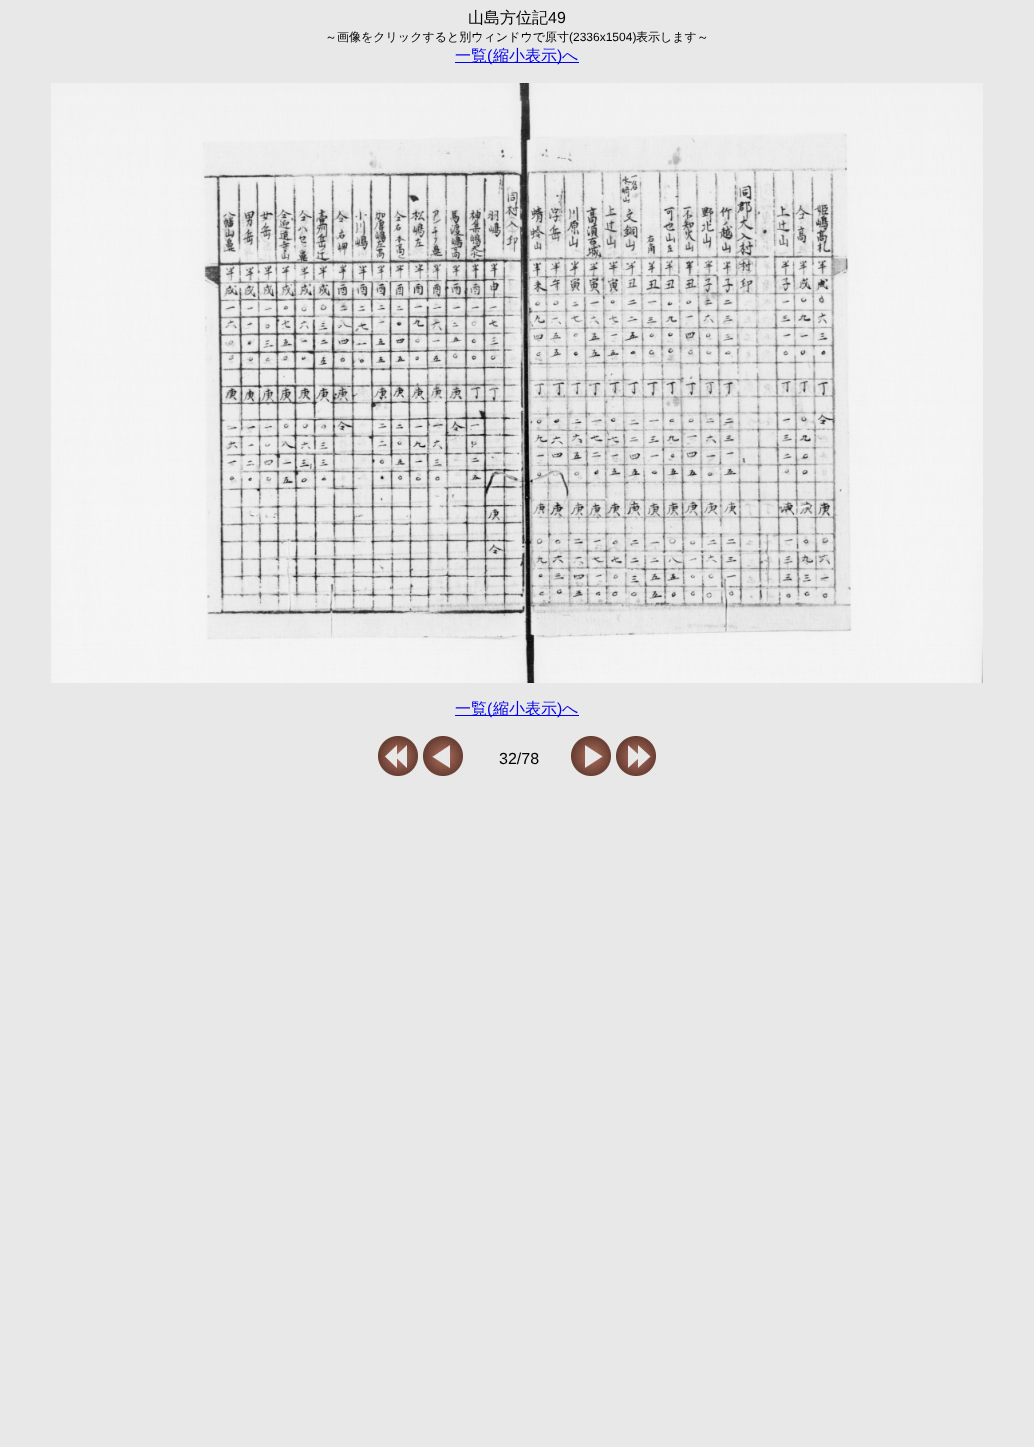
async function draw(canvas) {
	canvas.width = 1034;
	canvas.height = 1447;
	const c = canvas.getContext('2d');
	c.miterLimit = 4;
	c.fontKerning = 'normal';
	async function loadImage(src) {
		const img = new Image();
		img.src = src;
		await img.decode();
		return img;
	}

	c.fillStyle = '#e8e8e8';
	c.fillRect(0, 0, 1034, 1447);
	c.font = '500 16px WenQuanYi Zen Hei';
	c.fillStyle = '#000';
	c.fillText('山島方位記', 468, 23);
	c.font = '16px Liberation Sans';
	c.fillText('49', 548, 23);
	c.font = '500 12px WenQuanYi Zen Hei';
	c.fillText('～画像をクリックすると別ウィンドウで原寸', 325, 41);
	c.font = '12px Liberation Sans';
	c.fillText('(2336x1504)', 569, 41);
	c.font = '500 12px WenQuanYi Zen Hei';
	c.fillText('表示します～', 636, 41);
	c.fillStyle = '#00e';
	c.fillRect(455, 62, 124, 1);
	c.font = '500 16px WenQuanYi Zen Hei';
	c.fillText('一覧', 455, 61);
	c.font = '16px Liberation Sans';
	c.fillText('(', 487, 61);
	c.font = '500 16px WenQuanYi Zen Hei';
	c.fillText('縮小表示', 493, 61);
	c.font = '16px Liberation Sans';
	c.fillText(')', 557, 61);
	c.font = '500 16px WenQuanYi Zen Hei';
	c.fillText('へ', 562, 61);
	c.drawImage(await loadImage('img1.png'), 51, 83, 932, 600);
	c.fillRect(455, 715, 124, 1);
	c.fillText('一覧', 455, 714);
	c.font = '16px Liberation Sans';
	c.fillText('(', 487, 714);
	c.font = '500 16px WenQuanYi Zen Hei';
	c.fillText('縮小表示', 493, 714);
	c.font = '16px Liberation Sans';
	c.fillText(')', 557, 714);
	c.font = '500 16px WenQuanYi Zen Hei';
	c.fillText('へ', 562, 714);
	c.drawImage(await loadImage('img2.png'), 378, 736, 40, 40);
	c.drawImage(await loadImage('img3.png'), 423, 736, 40, 40);
	c.font = '16px Liberation Sans';
	c.fillStyle = '#000';
	c.fillText('32/78', 499, 764);
	c.drawImage(await loadImage('img4.png'), 571, 736, 40, 40);
	c.drawImage(await loadImage('img5.png'), 616, 736, 40, 40);
}

draw(document.querySelector('canvas'));
